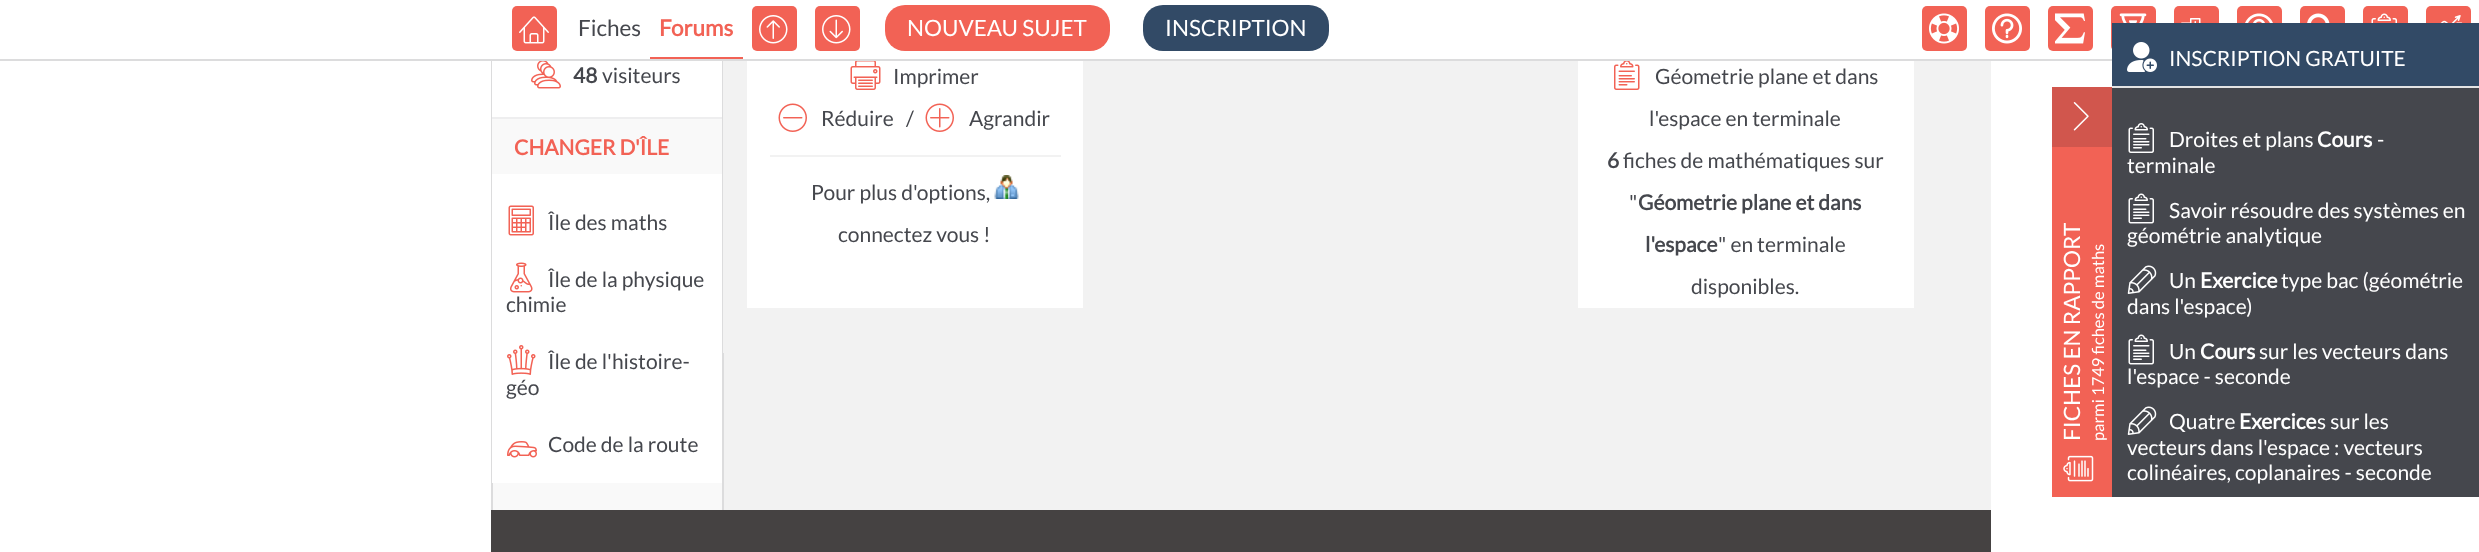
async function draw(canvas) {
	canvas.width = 2479;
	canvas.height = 552;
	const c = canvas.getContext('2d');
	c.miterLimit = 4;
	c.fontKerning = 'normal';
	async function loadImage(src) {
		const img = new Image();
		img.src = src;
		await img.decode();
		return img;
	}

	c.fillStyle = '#fff';
	c.fillRect(0, 0, 2479, 552);
	for (const [x, y, w, h, color] of [
		[724, 353, 1267, 157, '#f2f2f2'],
		[722, 61, 2, 449, '#dcdcdd'],
		[723, 61, 1268, 292, '#f2f2f2'],
		[0, 59, 2112, 2, '#dcdcdd'],
	]) {
		c.fillStyle = color;
		c.fillRect(x, y, w, h);
	}
	c.fillStyle = '#f26255';
	c.beginPath();
	c.roundRect(512, 6, 45, 45, 5);
	c.fill();
	c.drawImage(await loadImage('img1.png'), 519, 16, 30, 28);
	c.font = '22.5px Lato';
	c.fillStyle = '#45474d';
	c.fillText('Fiches', 578, 36);
	c.fillStyle = '#f26255';
	c.fillRect(650, 57, 93, 2);
	c.font = 'bold 22.5px Lato';
	c.fillText('Forums', 659, 36);
	c.beginPath();
	c.roundRect(752, 6, 45, 45, 5);
	c.fill();
	c.drawImage(await loadImage('img2.png'), 759, 15, 29, 29);
	c.beginPath();
	c.roundRect(815, 6, 45, 45, 5);
	c.fill();
	c.drawImage(await loadImage('img3.png'), 822, 15, 29, 29);
	c.beginPath();
	c.roundRect(885, 5, 225, 46, 20);
	c.fill();
	c.font = '22.5px Lato';
	c.fillStyle = '#fff';
	c.fillText('NOUVEAU SUJET', 907, 36);
	c.fillStyle = '#324a66';
	c.beginPath();
	c.roundRect(1143, 5, 186, 46, 20);
	c.fill();
	c.fillStyle = '#fff';
	c.fillText('INSCRIPTION', 1165, 36);
	c.fillStyle = '#f26255';
	c.beginPath();
	c.roundRect(1922, 6, 45, 45, 5);
	c.fill();
	c.drawImage(await loadImage('img4.png'), 1929, 13, 30, 31);
	c.beginPath();
	c.roundRect(1985, 6, 45, 45, 5);
	c.fill();
	c.drawImage(await loadImage('img5.png'), 1992, 13, 30, 31);
	c.beginPath();
	c.roundRect(2048, 6, 45, 45, 5);
	c.fill();
	c.drawImage(await loadImage('img6.png'), 2055, 13, 30, 31);
	c.beginPath();
	c.roundRect(2111, 6, 45, 45, 5);
	c.fill();
	c.drawImage(await loadImage('img7.png'), 2119, 13, 28, 10);
	c.beginPath();
	c.roundRect(2174, 6, 45, 45, 5);
	c.fill();
	c.drawImage(await loadImage('img8.png'), 2181, 18, 20, 5);
	c.beginPath();
	c.roundRect(2237, 6, 45, 45, 5);
	c.fill();
	c.drawImage(await loadImage('img9.png'), 2245, 13, 28, 10);
	c.beginPath();
	c.roundRect(2300, 6, 45, 45, 5);
	c.fill();
	c.drawImage(await loadImage('img10.png'), 2307, 13, 23, 10);
	c.beginPath();
	c.roundRect(2363, 6, 45, 45, 5);
	c.fill();
	c.drawImage(await loadImage('img11.png'), 2371, 13, 26, 10);
	c.beginPath();
	c.roundRect(2426, 6, 45, 45, 5);
	c.fill();
	c.drawImage(await loadImage('img12.png'), 2440, 15, 23, 8);
	c.fillStyle = '#fff';
	c.fillRect(747, 61, 336, 247);
	c.drawImage(await loadImage('img13.png'), 850, 61, 31, 29);
	c.font = '21px Lato';
	c.fillStyle = '#45474d';
	c.fillText('Imprimer', 893, 84);
	c.drawImage(await loadImage('img14.png'), 778, 103, 29, 29);
	c.fillText('Réduire', 821, 126);
	c.fillText('/', 906, 126);
	c.drawImage(await loadImage('img15.png'), 925, 103, 29, 29);
	c.fillText('Agrandir', 969, 126);
	c.fillStyle = '#f2f2f2';
	c.fillRect(770, 155, 291, 2);
	c.fillStyle = '#45474d';
	c.fillText('Pour plus d\'options,', 811, 200);
	c.drawImage(await loadImage('img16.png'), 994, 175, 25, 24);
	c.fillText('connectez vous !', 838, 242);
	c.fillStyle = '#fff';
	c.fillRect(1578, 61, 336, 247);
	c.drawImage(await loadImage('img17.png'), 1614, 61, 26, 29);
	c.fillStyle = '#45474d';
	c.fillText('Géometrie plane et dans', 1655, 84);
	c.fillText('l\'espace en terminale', 1649, 126);
	c.font = 'bold 21px Lato';
	c.fillText('6', 1607, 168);
	c.font = '21px Lato';
	c.fillText('fiches de mathématiques sur', 1623, 168);
	c.fillText('"', 1629, 210);
	c.font = 'bold 21px Lato';
	c.fillText('Géometrie plane et dans', 1638, 210);
	c.fillText('l\'espace', 1645, 252);
	c.font = '21px Lato';
	c.fillText('" en terminale', 1718, 252);
	c.fillText('disponibles.', 1691, 294);
	for (const [x, y, w, h, color] of [
		[493, 483, 229, 27, '#f9f9f9'],
		[491, 61, 2, 449, '#dcdcdd'],
		[492, 61, 1, 56, '#fff'],
	]) {
		c.fillStyle = color;
		c.fillRect(x, y, w, h);
	}
	c.drawImage(await loadImage('img18.png'), 531, 61, 30, 28);
	c.font = 'bold 21px Lato';
	c.fillStyle = '#45474d';
	c.fillText('48', 573, 83);
	c.font = '21px Lato';
	c.fillText('visiteurs', 602, 83);
	c.fillStyle = '#f9f9f9';
	c.fillRect(492, 119, 230, 55);
	c.fillStyle = '#eeeeef';
	c.fillRect(492, 117, 230, 2);
	c.font = 'bold 21px Lato';
	c.fillStyle = '#f26255';
	c.fillText('CHANGER D\'ÎLE', 514, 155);
	c.fillStyle = '#fff';
	c.fillRect(492, 174, 1, 309);
	c.drawImage(await loadImage('img19.png'), 508, 205, 26, 31);
	c.font = '21px Lato';
	c.fillStyle = '#45474d';
	c.fillText('Île des maths', 548, 230);
	c.drawImage(await loadImage('img20.png'), 510, 262, 23, 31);
	c.fillText('Île de la physique', 548, 287);
	c.fillText('chimie', 506, 312);
	c.drawImage(await loadImage('img21.png'), 507, 345, 29, 30);
	c.fillText('Île de l\'histoire-', 548, 369);
	c.fillText('géo', 506, 395);
	c.drawImage(await loadImage('img22.png'), 507, 441, 30, 17);
	c.fillText('Code de la route', 548, 452);
	for (const [x, y, w, h, color] of [
		[491, 510, 1500, 42, '#454242'],
		[2112, 23, 367, 63, '#324a66'],
		[2112, 86, 367, 2, '#e4e4e4'],
	]) {
		c.fillStyle = color;
		c.fillRect(x, y, w, h);
	}
	c.drawImage(await loadImage('img23.png'), 2127, 42, 30, 30);
	c.fillStyle = '#fff';
	c.fillText('INSCRIPTION GRATUITE', 2169, 66);
	c.fillStyle = '#f26255';
	c.fillRect(2052, 147, 60, 350);
	c.fillStyle = '#d1564d';
	c.fillRect(2052, 87, 60, 60);
	c.drawImage(await loadImage('img24.png'), 2073, 102, 16, 29);
	c.font = '22.5px Lato';
	c.fillStyle = '#fff';
	c.save();
	c.translate(2080, 441);
	c.rotate(-90 * Math.PI / 180);
	c.fillText('FICHES EN RAPPORT', 0, 0);
	c.restore();
	c.drawImage(await loadImage('img25.png'), 2063, 455, 31, 27);
	c.font = '16.5px Lato';
	c.save();
	c.translate(2104, 441);
	c.rotate(-90 * Math.PI / 180);
	c.fillText('parmi 1749 fiches de maths', 0, 0);
	c.restore();
	c.fillStyle = '#45474d';
	c.fillRect(2112, 88, 367, 409);
	c.drawImage(await loadImage('img26.png'), 2128, 123, 26, 30);
	c.font = '21px Lato';
	c.fillStyle = '#fff';
	c.fillText('Droites et plans', 2169, 147);
	c.font = 'bold 21px Lato';
	c.fillText('Cours', 2317, 147);
	c.font = '21px Lato';
	c.fillText('-', 2377, 147);
	c.fillText('terminale', 2127, 173);
	c.drawImage(await loadImage('img27.png'), 2128, 193, 26, 31);
	c.fillText('Savoir résoudre des systèmes en', 2169, 218);
	c.fillText('géométrie analytique', 2127, 243);
	c.drawImage(await loadImage('img28.png'), 2127, 265, 30, 29);
	c.fillText('Un', 2169, 288);
	c.font = 'bold 21px Lato';
	c.fillText('Exercice', 2200, 288);
	c.font = '21px Lato';
	c.fillText('type bac (géométrie', 2281, 288);
	c.fillText('dans l\'espace)', 2127, 314);
	c.drawImage(await loadImage('img27.png'), 2128, 334, 26, 31);
	c.fillText('Un', 2169, 359);
	c.font = 'bold 21px Lato';
	c.fillText('Cours', 2200, 359);
	c.font = '21px Lato';
	c.fillText('sur les vecteurs dans', 2259, 359);
	c.fillText('l\'espace - seconde', 2127, 384);
	c.drawImage(await loadImage('img28.png'), 2127, 406, 30, 29);
	c.fillText('Quatre', 2169, 429);
	c.font = 'bold 21px Lato';
	c.fillText('Exercice', 2239, 429);
	c.font = '21px Lato';
	for (const [text, x, y] of [
		['s sur les', 2317, 429],
		['vecteurs dans l\'espace : vecteurs', 2127, 455],
		['colinéaires, coplanaires - seconde', 2127, 480],
	]) {
		c.fillText(text, x, y);
	}
}

draw(document.querySelector('canvas'));
